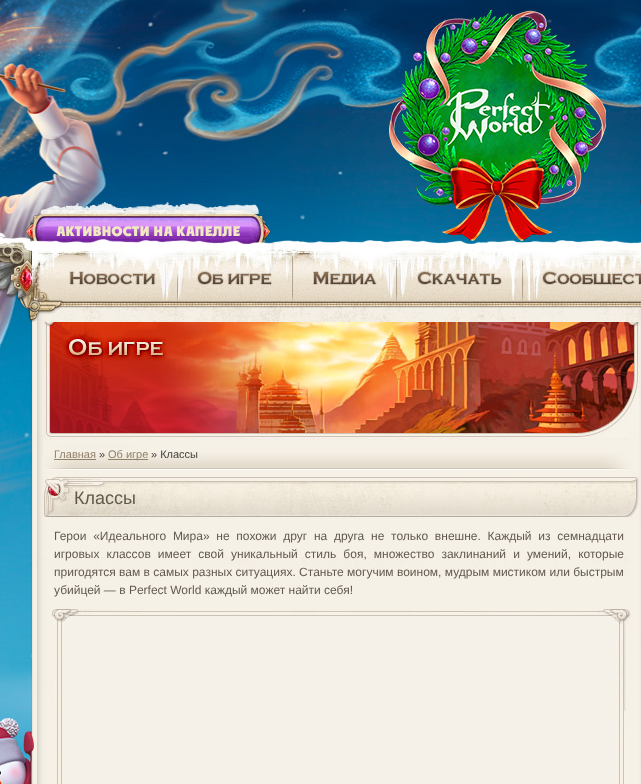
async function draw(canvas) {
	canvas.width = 641;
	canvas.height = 784;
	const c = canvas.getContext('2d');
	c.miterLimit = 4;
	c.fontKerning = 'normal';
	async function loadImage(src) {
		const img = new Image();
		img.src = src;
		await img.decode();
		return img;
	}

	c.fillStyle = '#fff';
	c.fillRect(0, 0, 641, 784);
	c.drawImage(await loadImage('img1.png'), 0, 0, 641, 784);
	c.drawImage(await loadImage('img2.png'), 389, 9, 217, 232);
	c.drawImage(await loadImage('img3.png'), 640, 198, 1, 7);
	c.drawImage(await loadImage('img6.png'), 32, 250, 609, 53);
	c.drawImage(await loadImage('img8.png'), 31, 319, 610, 465);
	c.drawImage(await loadImage('img10.png'), 25, 298, 616, 24);
	c.drawImage(await loadImage('img7.png'), 0, 232, 32, 86);
	c.drawImage(await loadImage('img4.png'), 25, 210, 246, 35);
	c.drawImage(await loadImage('img5.png'), 39, 202, 220, 12);
	c.letterSpacing = '0.1px';
	c.font = '800 13.4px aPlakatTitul';
	c.fillStyle = '#f2e8c4';
	c.fillText('АКТИВНОСТИ НА КАПЕЛЛЕ', 56, 236);
	c.drawImage(await loadImage('img9.png'), 24, 239, 617, 12);
	c.drawImage(await loadImage('img11.png'), 44, 322, 595, 116);
	c.drawImage(await loadImage('img12.png'), 44, 440, 588, 30);
	c.letterSpacing = '0px';
	c.font = '11px Liberation Sans';
	c.fillStyle = '#918269';
	c.fillText('Главная', 54, 458);
	c.fillRect(54, 459, 42, 1);
	c.fillStyle = '#464441';
	c.fillText('»', 99, 458);
	c.fillStyle = '#918269';
	c.fillRect(108, 459, 40, 1);
	c.fillText('Об игре', 108, 458);
	c.fillStyle = '#464441';
	c.fillText('» Классы', 151, 458);
	c.drawImage(await loadImage('img13.png'), 44, 477, 595, 40);
	c.font = '18px Liberation Sans';
	c.fillStyle = '#62594e';
	c.fillText('Классы', 74, 504);
	c.wordSpacing = '3.4px';
	c.font = '12px Liberation Sans';
	c.fillText('Герои «Идеального Мира» не похожи друг на друга не только внешне. Каждый из семнадцати', 54, 540);
	c.wordSpacing = '3.75px';
	c.fillText('игровых классов имеет свой уникальный стиль боя, множество заклинаний и умений, которые', 54, 558);
	c.wordSpacing = '0px';
	c.fillText('пригодятся вам в самых разных ситуациях. Станьте могучим воином, мудрым мистиком или быстрым', 54, 576);
	c.fillText('убийцей — в Perfect World каждый может найти себя!', 54, 594);
	c.drawImage(await loadImage('img14.png'), 52, 609, 580, 175);
	c.drawImage(await loadImage('img15.png'), 0, 717, 34, 67);
}

draw(document.querySelector('canvas'));
